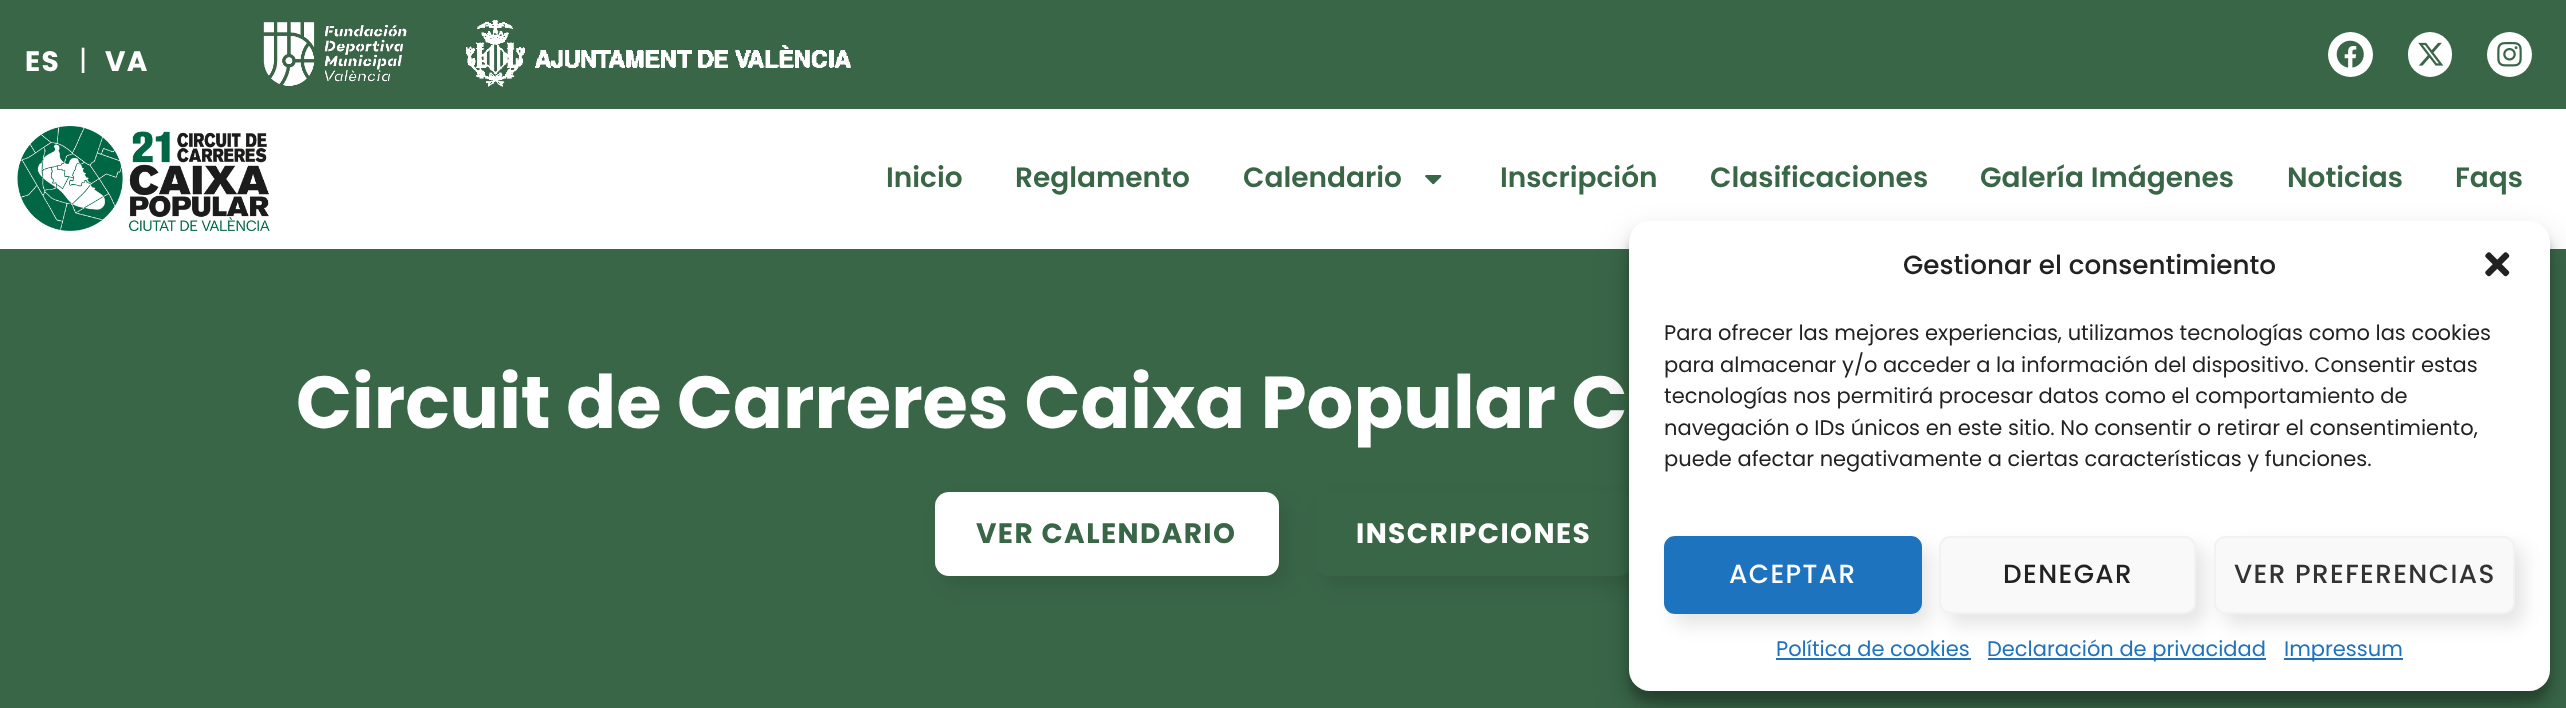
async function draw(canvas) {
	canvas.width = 2566;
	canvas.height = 708;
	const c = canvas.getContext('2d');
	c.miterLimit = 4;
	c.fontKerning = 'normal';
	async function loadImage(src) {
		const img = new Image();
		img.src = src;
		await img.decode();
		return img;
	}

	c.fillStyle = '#fff';
	c.fillRect(0, 0, 2566, 708);
	c.fillStyle = '#3a6648';
	c.fillRect(0, 0, 2566, 109);
	c.letterSpacing = '1.4px';
	c.font = 'bold 28px Poppins';
	c.fillStyle = '#fff';
	c.fillText('ES', 25, 71);
	c.letterSpacing = '0px';
	c.font = '28px Poppins';
	c.fillText('|', 79, 70);
	c.letterSpacing = '1.4px';
	c.font = 'bold 28px Poppins';
	c.fillText('VA', 105, 71);
	c.drawImage(await loadImage('img1.png'), 263, 22, 144, 64);
	c.drawImage(await loadImage('img2.png'), 466, 19, 385, 68);
	c.beginPath();
	c.arc(2350.5, 54.5, 22.5, 0, 2 * Math.PI);
	c.fill();
	c.drawImage(await loadImage('img3.png'), 2336, 40, 28, 28);
	c.beginPath();
	c.roundRect(2408, 32, 44, 45, 22);
	c.fill();
	c.drawImage(await loadImage('img4.png'), 2418, 42, 26, 24);
	c.beginPath();
	c.arc(2509.5, 54.5, 22.5, 0, 2 * Math.PI);
	c.fill();
	c.drawImage(await loadImage('img5.png'), 2497, 42, 25, 25);
	c.fillStyle = '#3a6648';
	c.fillRect(0, 249, 2566, 459);
	c.drawImage(await loadImage('img6.png'), 17, 126, 253, 105);
	c.letterSpacing = '0px';
	c.font = '600 28px Poppins';
	for (const [text, x, y] of [
		['Inicio', 886, 187],
		['Reglamento', 1015, 187],
		['Calendario', 1243, 187],
	]) {
		c.fillText(text, x, y);
	}
	c.drawImage(await loadImage('img7.png'), 1425, 175, 17, 10);
	for (const [text, x, y] of [
		['Inscripción', 1500, 187],
		['Clasificaciones', 1710, 187],
		['Galería Imágenes', 1980, 187],
		['Noticias', 2287, 187],
		['Faqs', 2455, 187],
	]) {
		c.fillText(text, x, y);
	}
	c.font = 'bold 73.5px Poppins';
	c.fillStyle = '#fff';
	c.fillText('Circuit de Carreres Caixa Popular C', 296, 428);
	c.fillStyle = '#0000001a';
	c.filter = 'blur(9px)';
	c.beginPath();
	c.roundRect(943, 502, 345, 84, 14);
	c.fill();
	c.filter = 'none';
	c.fillStyle = '#fff';
	c.beginPath();
	c.roundRect(935, 492, 344, 84, 14);
	c.fill();
	c.letterSpacing = '1.4px';
	c.font = 'bold 28px Poppins';
	c.fillStyle = '#3a6648';
	c.fillText('VER CALENDARIO', 976, 543);
	c.fillStyle = '#0000001a';
	c.filter = 'blur(9px)';
	c.beginPath();
	c.roundRect(1323, 502, 319, 84, 14);
	c.fill();
	c.filter = 'none';
	c.fillStyle = '#3a6648';
	c.beginPath();
	c.roundRect(1314, 492, 319, 84, 14);
	c.fill();
	c.fillStyle = '#fff';
	c.fillText('INSCRIPCIONES', 1356, 543);
	c.fillStyle = '#0000003b';
	c.filter = 'blur(5px)';
	c.beginPath();
	c.roundRect(1629, 231, 921, 471, 21);
	c.fill();
	c.filter = 'none';
	c.fillStyle = '#00000030';
	c.filter = 'blur(17.5px)';
	c.beginPath();
	c.roundRect(1629, 238, 921, 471, 21);
	c.fill();
	c.filter = 'none';
	c.fillStyle = '#fff';
	c.beginPath();
	c.roundRect(1629, 221, 921, 470, 21);
	c.fill();
	c.letterSpacing = '0px';
	c.font = '500 26.25px Poppins';
	c.fillStyle = '#222';
	c.fillText('Gestionar el consentimiento', 1903, 274);
	c.drawImage(await loadImage('img8.png'), 2485, 252, 25, 25);
	c.font = '21px Poppins';
	for (const [text, x, y] of [
		['Para ofrecer las mejores experiencias, utilizamos tecnologías como las cookies', 1664, 340],
		['para almacenar y/o acceder a la información del dispositivo. Consentir estas', 1664, 372],
		['tecnologías nos permitirá procesar datos como el comportamiento de', 1664, 403],
		['navegación o IDs únicos en este sitio. No consentir o retirar el consentimiento,', 1664, 435],
		['puede afectar negativamente a ciertas características y funciones.', 1664, 466],
	]) {
		c.fillText(text, x, y);
	}
	c.fillStyle = '#0000001a';
	c.filter = 'blur(9px)';
	c.beginPath();
	c.roundRect(1673, 546, 257, 79, 11);
	c.fill();
	c.filter = 'none';
	c.fillStyle = '#1e73be';
	c.beginPath();
	c.roundRect(1665, 537, 256, 76, 10);
	c.fill();
	c.strokeStyle = '#1e73be';
	c.lineWidth = 2;
	c.stroke();
	c.letterSpacing = '1.4px';
	c.font = '500 26.25px Poppins';
	c.fillStyle = '#fff';
	c.fillText('ACEPTAR', 1729, 583);
	c.fillStyle = '#0000001a';
	c.filter = 'blur(9px)';
	c.beginPath();
	c.roundRect(1948, 546, 257, 79, 11);
	c.fill();
	c.filter = 'none';
	c.fillStyle = '#f9f9f9';
	c.beginPath();
	c.roundRect(1940, 537, 255, 76, 10);
	c.fill();
	c.strokeStyle = '#f2f2f2';
	c.stroke();
	c.fillStyle = '#222';
	c.fillText('DENEGAR', 2003, 583);
	c.fillStyle = '#0000001a';
	c.filter = 'blur(9px)';
	c.beginPath();
	c.roundRect(2223, 546, 301, 79, 11);
	c.fill();
	c.filter = 'none';
	c.fillStyle = '#f9f9f9';
	c.beginPath();
	c.roundRect(2215, 537, 299, 76, 10);
	c.fill();
	c.stroke();
	c.fillStyle = '#333';
	c.fillText('VER PREFERENCIAS', 2234, 583);
	c.letterSpacing = '0px';
	c.font = '21px Poppins';
	c.fillStyle = '#1e73be';
	c.fillText('Política de cookies', 1776, 656);
	c.fillRect(1776, 658, 195, 2);
	c.fillRect(1988, 658, 278, 2);
	c.fillText('Declaración de privacidad', 1987, 656);
	c.fillRect(2284, 658, 119, 2);
	c.fillText('Impressum', 2284, 656);
}

draw(document.querySelector('canvas'));
